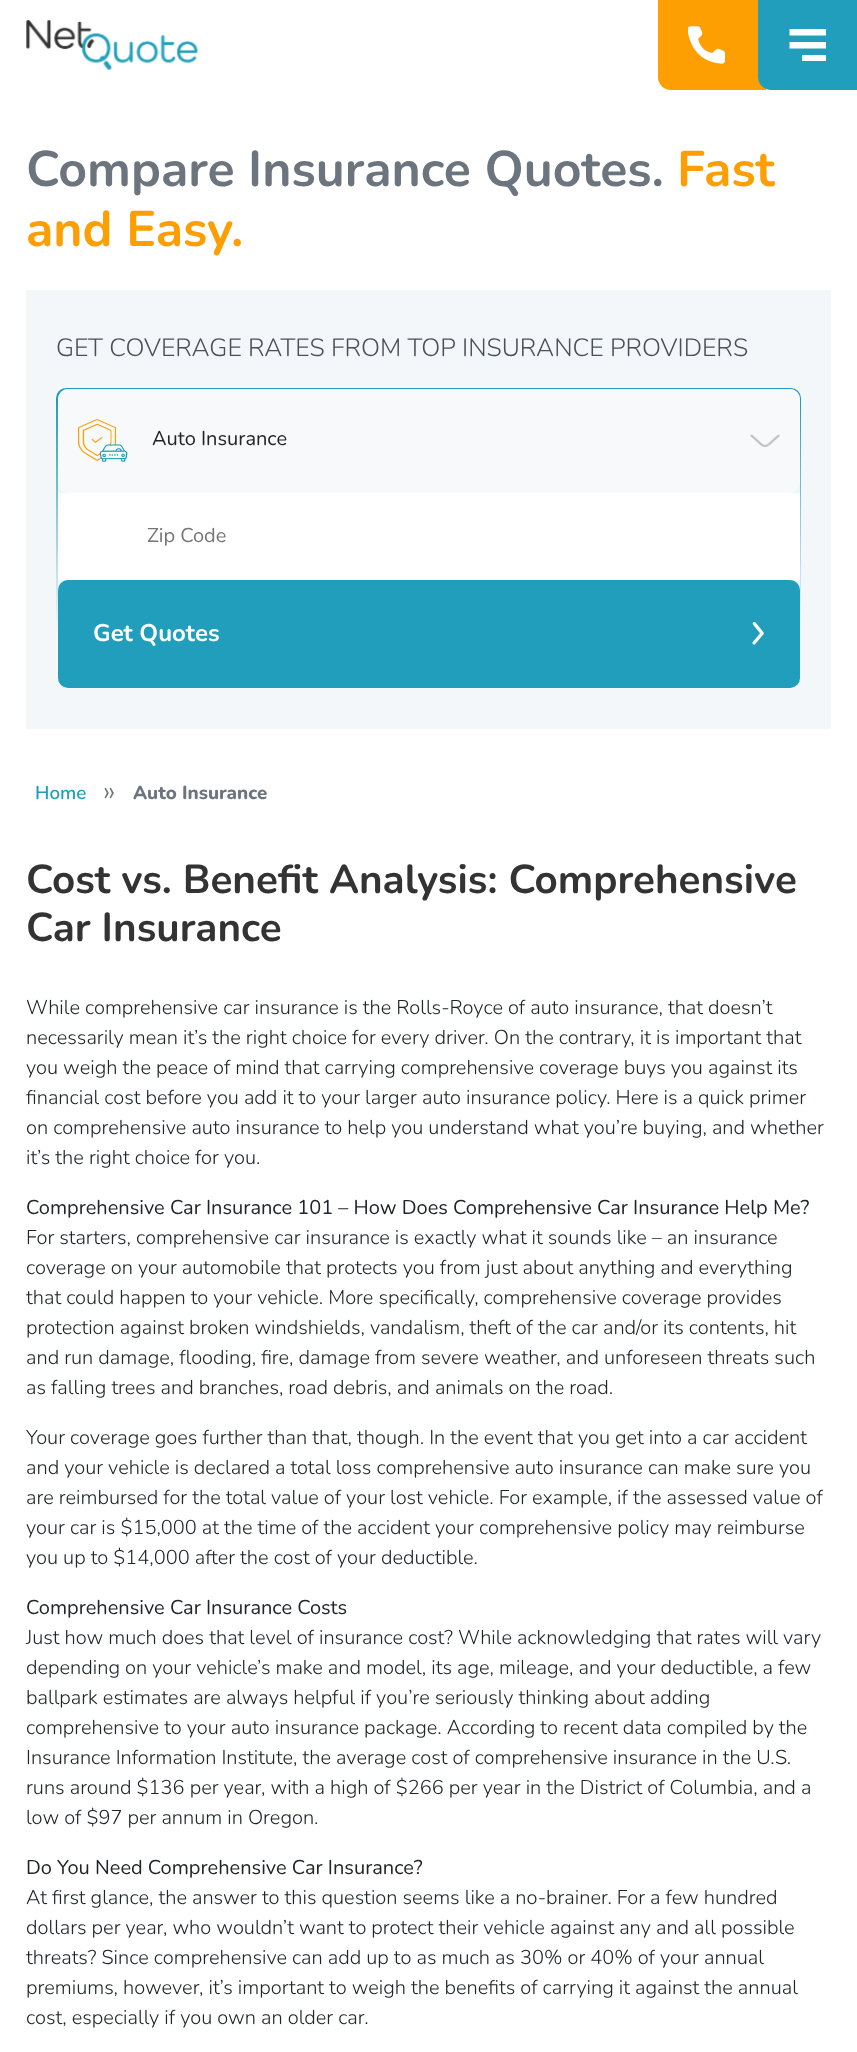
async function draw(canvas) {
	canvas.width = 857;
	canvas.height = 2052;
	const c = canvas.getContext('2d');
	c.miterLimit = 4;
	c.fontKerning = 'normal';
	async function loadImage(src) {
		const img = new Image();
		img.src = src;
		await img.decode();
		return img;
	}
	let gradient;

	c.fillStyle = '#fff';
	c.fillRect(0, 0, 857, 2052);
	c.drawImage(await loadImage('img1.png'), 26, 20, 173, 50);
	c.fillStyle = '#fd9e02';
	c.beginPath();
	c.roundRect(658, 0, 108, 90, [0, 0, 0, 13]);
	c.fill();
	c.drawImage(await loadImage('img2.png'), 688, 26, 37, 38);
	c.fillStyle = '#219ebc';
	c.beginPath();
	c.moveTo(758, 0);
	c.lineTo(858, 0);
	c.lineTo(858, 90);
	c.lineTo(771, 90);
	c.bezierCurveTo(764, 90, 758, 84, 758, 77);
	c.closePath();
	c.fill();
	c.save();
	c.beginPath();
	c.rect(789, 29, 37, 32);
	c.clip();
	c.fillStyle = '#fff';
	c.beginPath();
	c.moveTo(789.5, 29);
	c.lineTo(826, 29);
	c.lineTo(826, 35.5);
	c.lineTo(789.5, 35.5);
	c.closePath();
	c.moveTo(789.5, 42);
	c.lineTo(826, 42);
	c.lineTo(826, 48.5);
	c.lineTo(789.5, 48.5);
	c.closePath();
	c.moveTo(802, 55);
	c.lineTo(826, 55);
	c.lineTo(826, 61.5);
	c.lineTo(802, 61.5);
	c.closePath();
	c.fill();
	c.restore();
	c.font = 'bold 50px Nunito';
	c.fillStyle = '#6c757d';
	c.fillText('Compare Insurance Quotes.', 26, 186);
	c.fillStyle = '#fd9e02';
	c.fillText('Fast', 677, 186);
	c.fillText('and Easy.', 26, 246);
	c.fillStyle = '#f3f7f9';
	c.fillRect(26, 290, 805, 439);
	c.font = '300 25px Nunito';
	c.fillStyle = '#495057';
	c.fillText('GET COVERAGE RATES FROM TOP INSURANCE PROVIDERS', 56, 356);
	gradient = c.createLinearGradient(429, 387, 429, 689);
	gradient.addColorStop(0.05, '#219ebc');
	gradient.addColorStop(0.8, '#f4f8f8');
	c.fillStyle = gradient;
	c.beginPath();
	c.roundRect(56, 388, 745, 301, 10);
	c.fill();
	c.fillStyle = '#eaf7fb';
	c.beginPath();
	c.roundRect(58, 389, 742, 299, 10);
	c.fill();
	c.fillStyle = '#f8f9fa';
	c.beginPath();
	c.roundRect(58, 389, 742, 104, 10);
	c.fill();
	c.drawImage(await loadImage('img3.png'), 78, 419, 50, 43);
	c.font = '20px Nunito';
	c.fillStyle = '#212529';
	c.fillText('Auto Insurance', 152, 445);
	c.drawImage(await loadImage('img4.png'), 750, 434, 30, 13);
	c.fillStyle = '#fff';
	c.fillRect(58, 493, 742, 87);
	c.fillStyle = '#757575';
	c.fillText('Zip Code', 147, 542);
	c.fillStyle = '#219ebc';
	c.beginPath();
	c.roundRect(58, 580, 742, 108, 10);
	c.fill();
	c.font = 'bold 24px Nunito';
	c.fillStyle = '#fff';
	c.fillText('Get Quotes', 93, 641);
	c.drawImage(await loadImage('img5.png'), 752, 622, 12, 23);
	c.font = '600 18.75px Nunito';
	c.fillStyle = '#219ebc';
	c.fillText('Home', 35, 799);
	c.font = '300 30px Nunito';
	c.fillStyle = '#6c757d';
	c.fillText('»', 103, 801);
	c.font = '800 18.75px Nunito';
	c.fillText('Auto Insurance', 133, 799);
	c.font = 'bold 40.4px Nunito';
	c.fillStyle = '#333';
	c.fillText('Cost vs. Benefit Analysis: Comprehensive', 26, 893);
	c.fillText('Car Insurance', 26, 941);
	c.font = '300 20px Nunito';
	c.fillStyle = '#212529';
	for (const [text, x, y] of [
		['While comprehensive car insurance is the Rolls-Royce of auto insurance, that doesn’t', 26, 1014],
		['necessarily mean it’s the right choice for every driver. On the contrary, it is important that', 26, 1044],
		['you weigh the peace of mind that carrying comprehensive coverage buys you against its', 26, 1074],
		['financial cost before you add it to your larger auto insurance policy. Here is a quick primer', 26, 1104],
		['on comprehensive auto insurance to help you understand what you’re buying, and whether', 26, 1134],
		['it’s the right choice for you.', 26, 1164],
	]) {
		c.fillText(text, x, y);
	}
	c.font = '20px Nunito';
	c.fillText('Comprehensive Car Insurance 101 – How Does Comprehensive Car Insurance Help Me?', 26, 1214);
	c.font = '300 20px Nunito';
	for (const [text, x, y] of [
		['For starters, comprehensive car insurance is exactly what it sounds like – an insurance', 26, 1244],
		['coverage on your automobile that protects you from just about anything and everything', 26, 1274],
		['that could happen to your vehicle. More specifically, comprehensive coverage provides', 26, 1304],
		['protection against broken windshields, vandalism, theft of the car and/or its contents, hit', 26, 1334],
		['and run damage, flooding, fire, damage from severe weather, and unforeseen threats such', 26, 1364],
		['as falling trees and branches, road debris, and animals on the road.', 26, 1394],
		['Your coverage goes further than that, though. In the event that you get into a car accident', 26, 1444],
		['and your vehicle is declared a total loss comprehensive auto insurance can make sure you', 26, 1474],
		['are reimbursed for the total value of your lost vehicle. For example, if the assessed value of', 26, 1504],
		['your car is $15,000 at the time of the accident your comprehensive policy may reimburse', 26, 1534],
		['you up to $14,000 after the cost of your deductible.', 26, 1564],
	]) {
		c.fillText(text, x, y);
	}
	c.font = '20px Nunito';
	c.fillText('Comprehensive Car Insurance Costs', 26, 1614);
	c.font = '300 20px Nunito';
	for (const [text, x, y] of [
		['Just how much does that level of insurance cost? While acknowledging that rates will vary', 26, 1644],
		['depending on your vehicle’s make and model, its age, mileage, and your deductible, a few', 26, 1674],
		['ballpark estimates are always helpful if you’re seriously thinking about adding', 26, 1704],
		['comprehensive to your auto insurance package. According to recent data compiled by the', 26, 1734],
		['Insurance Information Institute, the average cost of comprehensive insurance in the U.S.', 26, 1764],
		['runs around $136 per year, with a high of $266 per year in the District of Columbia, and a', 26, 1794],
		['low of $97 per annum in Oregon.', 26, 1824],
	]) {
		c.fillText(text, x, y);
	}
	c.font = '20px Nunito';
	c.fillText('Do You Need Comprehensive Car Insurance?', 26, 1874);
	c.font = '300 20px Nunito';
	for (const [text, x, y] of [
		['At first glance, the answer to this question seems like a no-brainer. For a few hundred', 26, 1904],
		['dollars per year, who wouldn’t want to protect their vehicle against any and all possible', 26, 1934],
		['threats? Since comprehensive can add up to as much as 30% or 40% of your annual', 26, 1964],
		['premiums, however, it’s important to weigh the benefits of carrying it against the annual', 26, 1994],
		['cost, especially if you own an older car.', 26, 2024],
	]) {
		c.fillText(text, x, y);
	}
}

draw(document.querySelector('canvas'));
